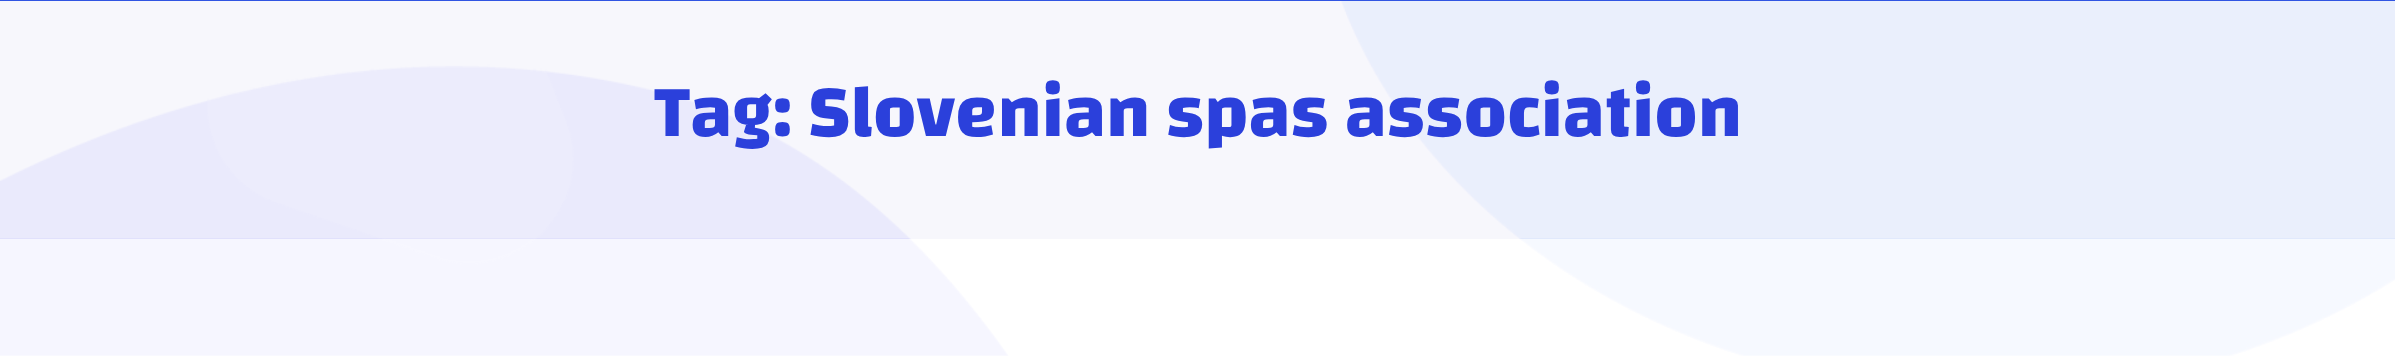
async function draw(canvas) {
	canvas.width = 2395;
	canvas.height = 356;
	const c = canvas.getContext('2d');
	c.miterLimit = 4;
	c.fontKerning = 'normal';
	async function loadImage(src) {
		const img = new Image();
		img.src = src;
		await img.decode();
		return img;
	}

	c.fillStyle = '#fff';
	c.fillRect(0, 0, 2395, 356);
	c.fillStyle = '#3155e2';
	c.fillRect(0, 0, 2395, 1);
	c.fillStyle = '#f7f7fc';
	c.fillRect(0, 1, 2395, 238);
	c.drawImage(await loadImage('img1.png'), 0, 1, 2395, 238);
	c.font = 'bold 75px Changa';
	c.fillStyle = '#2b40db';
	c.fillText('Tag: Slovenian spas association', 654, 136);
	c.drawImage(await loadImage('img2.png'), 0, 238, 2395, 118);
}

draw(document.querySelector('canvas'));
